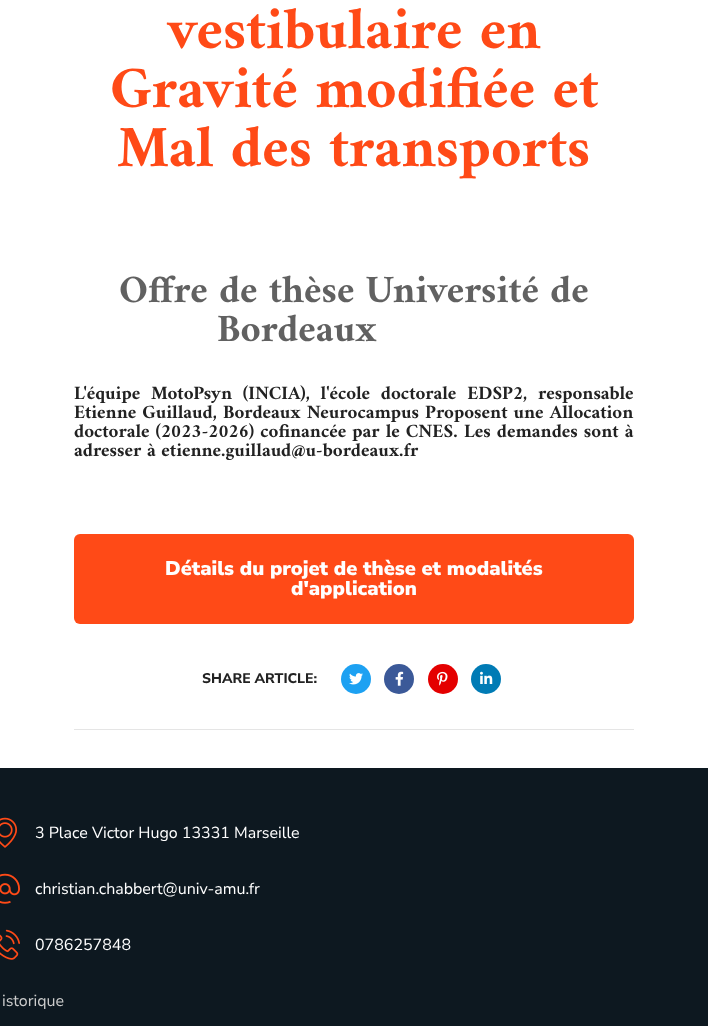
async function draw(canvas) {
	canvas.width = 708;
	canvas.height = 1026;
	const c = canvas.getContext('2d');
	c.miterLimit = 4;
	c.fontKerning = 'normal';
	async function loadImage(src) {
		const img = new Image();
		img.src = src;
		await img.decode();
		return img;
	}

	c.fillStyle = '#fff';
	c.fillRect(0, 0, 708, 1026);
	c.font = 'bold 59px Amiri';
	c.fillStyle = '#ff4a17';
	for (const [text, x, y] of [
		['vestibulaire en', 167, 48],
		['Gravité modifiée et', 110, 107],
		['Mal des transports', 117, 166],
	]) {
		c.fillText(text, x, y);
	}
	c.font = 'bold 39px Amiri';
	c.fillStyle = '#616161';
	c.fillText('Offre de thèse Université de', 119, 302);
	c.fillText('Bordeaux', 217, 341);
	c.wordSpacing = '5.25px';
	c.font = 'bold 19px Amiri';
	c.fillStyle = '#222';
	c.fillText('L\'équipe MotoPsyn (INCIA), l\'école doctorale EDSP2, responsable', 74, 399);
	c.wordSpacing = '0.5px';
	for (const [text, x, y] of [
		['Etienne Guillaud, Bordeaux Neurocampus Proposent une Allocation', 74, 418],
		['doctorale (2023-2026) cofinancée par le CNES.', 74, 437],
		['Les demandes sont à', 464, 437],
	]) {
		c.fillText(text, x, y);
	}
	c.wordSpacing = '0px';
	c.fillText('adresser à etienne.guillaud@u-bordeaux.fr', 74, 456);
	c.fillStyle = '#ff4a17';
	c.beginPath();
	c.roundRect(74, 534, 560, 90, 6);
	c.fill();
	c.font = '900 20px Nunito Sans';
	c.fillStyle = '#fff';
	c.fillText('Détails du projet de thèse et modalités', 165, 575);
	c.fillText('d\'application', 291, 595);
	c.font = '800 14px Nunito Sans';
	c.fillStyle = '#222';
	c.fillText('SHARE ARTICLE:', 202, 683);
	c.fillStyle = '#1da1f2';
	c.beginPath();
	c.arc(356, 679, 15, 0, 2 * Math.PI);
	c.fill();
	c.drawImage(await loadImage('img1.png'), 349, 673, 14, 12);
	c.fillStyle = '#3b5998';
	c.beginPath();
	c.arc(399, 679, 15, 0, 2 * Math.PI);
	c.fill();
	c.drawImage(await loadImage('img2.png'), 395, 671, 9, 15);
	c.fillStyle = '#e40000';
	c.beginPath();
	c.arc(443, 679, 15, 0, 2 * Math.PI);
	c.fill();
	c.drawImage(await loadImage('img3.png'), 437, 671, 11, 15);
	c.fillStyle = '#007bb5';
	c.beginPath();
	c.arc(486, 679, 15, 0, 2 * Math.PI);
	c.fill();
	c.drawImage(await loadImage('img4.png'), 480, 671, 13, 13);
	c.fillStyle = '#e5e5e5';
	c.fillRect(74, 729, 560, 1);
	c.fillStyle = '#0d1820';
	c.fillRect(0, 768, 708, 258);
	c.drawImage(await loadImage('img5.png'), 0, 817, 17, 31);
	c.font = '16px Nunito Sans';
	c.fillStyle = '#fff';
	c.fillText('3 Place Victor Hugo 13331 Marseille', 35, 838);
	c.drawImage(await loadImage('img6.png'), 0, 873, 20, 31);
	c.fillText('christian.chabbert@univ-amu.fr', 35, 894);
	c.drawImage(await loadImage('img7.png'), 0, 929, 20, 31);
	c.fillText('0786257848', 35, 950);
	c.fillStyle = '#ccc';
	c.fillText('istorique', 2, 1006);
}

draw(document.querySelector('canvas'));
